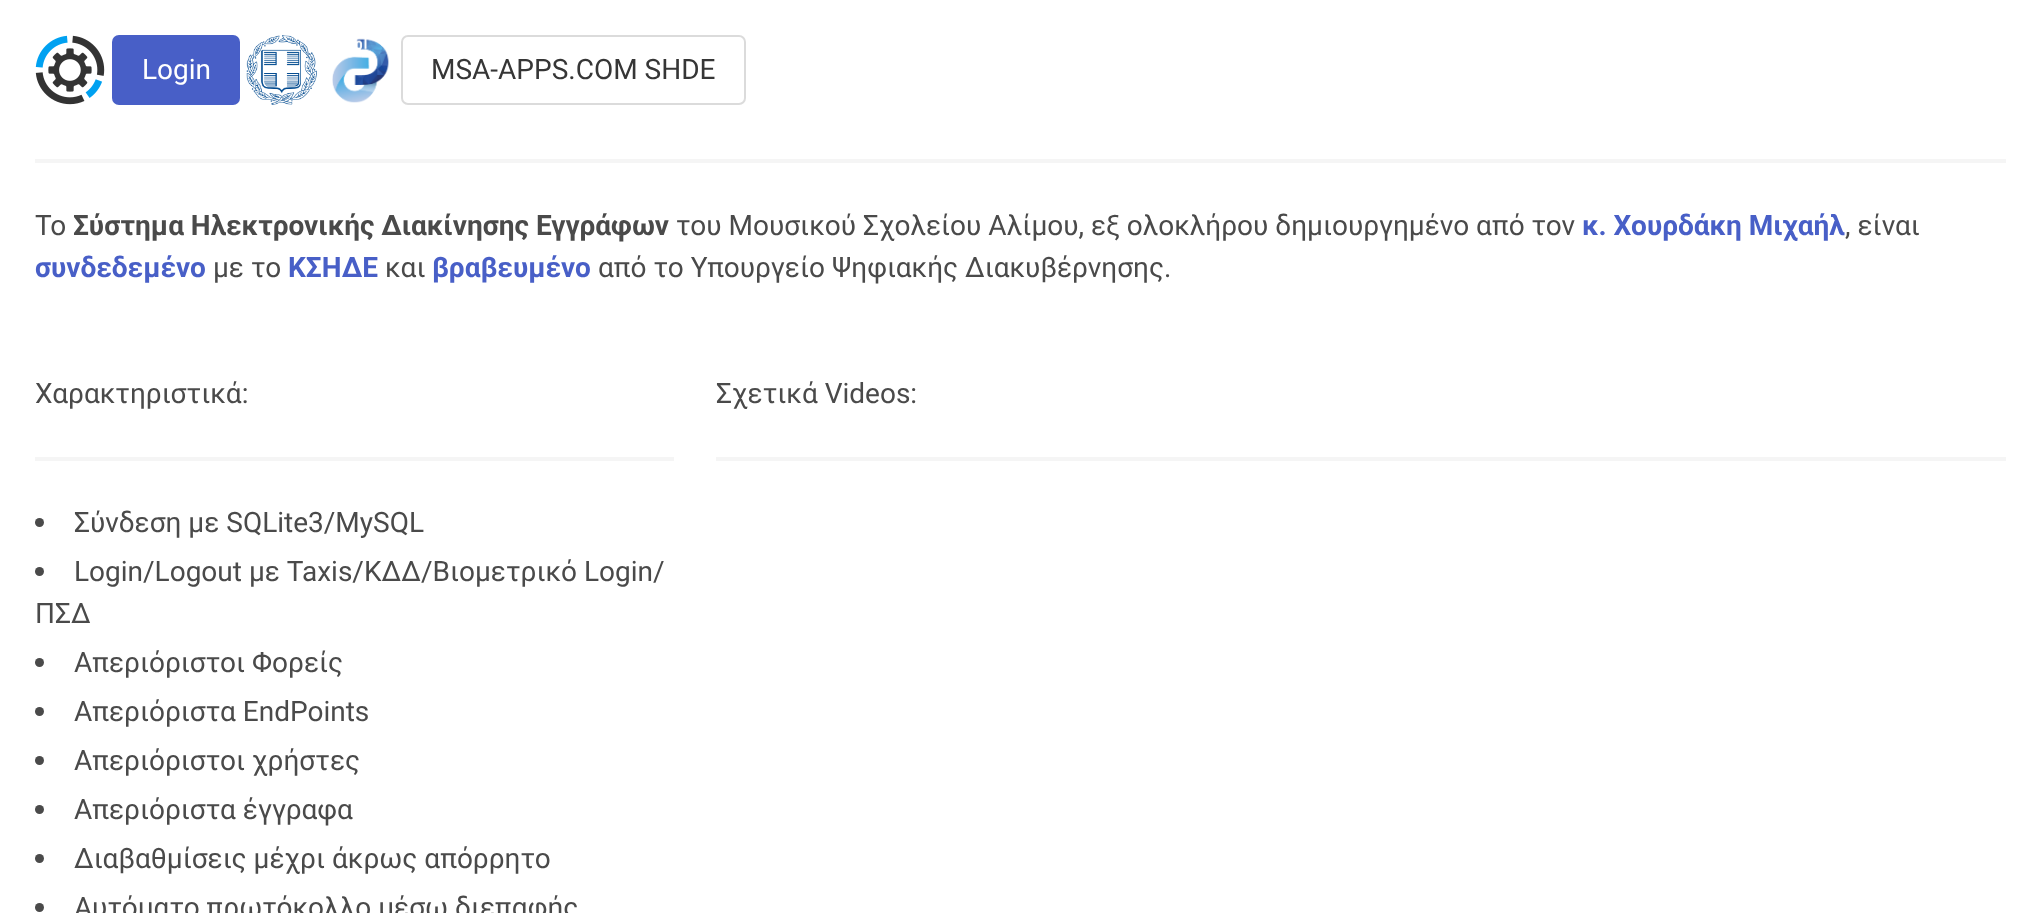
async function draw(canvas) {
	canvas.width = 2040;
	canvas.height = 913;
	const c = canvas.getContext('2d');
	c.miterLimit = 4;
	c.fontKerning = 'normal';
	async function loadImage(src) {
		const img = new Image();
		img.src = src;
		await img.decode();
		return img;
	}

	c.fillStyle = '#fff';
	c.fillRect(0, 0, 2040, 913);
	c.drawImage(await loadImage('img1.png'), 35, 35, 70, 70);
	c.fillStyle = '#485fc7';
	c.beginPath();
	c.roundRect(112, 35, 128, 70, 7);
	c.fill();
	c.font = '28px Roboto';
	c.fillStyle = '#fff';
	c.fillText('Login', 142, 79);
	c.drawImage(await loadImage('img2.png'), 246, 35, 71, 70);
	c.drawImage(await loadImage('img3.png'), 332, 38, 57, 65);
	c.beginPath();
	c.roundRect(402, 36, 343, 68, 6);
	c.strokeStyle = '#dbdbdb';
	c.lineWidth = 2;
	c.stroke();
	c.fillStyle = '#363636';
	c.fillText('MSA-APPS.COM SHDE', 431, 79);
	c.fillStyle = '#f5f5f5';
	c.fillRect(35, 159, 1971, 4);
	c.fillStyle = '#4a4a4a';
	c.fillText('Το', 35, 235);
	c.font = 'bold 28px Roboto';
	c.fillText('Σύστημα Ηλεκτρονικής Διακίνησης Εγγράφων', 73, 235);
	c.font = '28px Roboto';
	c.fillText('του Μουσικού Σχολείου Αλίμου, εξ ολοκλήρου δημιουργημένο από τον', 676, 235);
	c.font = 'bold 28px Roboto';
	c.fillStyle = '#485fc7';
	c.fillText('κ. Χουρδάκη Μιχαήλ', 1582, 235);
	c.font = '28px Roboto';
	c.fillStyle = '#4a4a4a';
	c.fillText(', είναι', 1845, 235);
	c.font = 'bold 28px Roboto';
	c.fillStyle = '#485fc7';
	c.fillText('συνδεδεμένο', 35, 277);
	c.font = '28px Roboto';
	c.fillStyle = '#4a4a4a';
	c.fillText('με το', 213, 277);
	c.font = 'bold 28px Roboto';
	c.fillStyle = '#485fc7';
	c.fillText('ΚΣΗΔΕ', 288, 277);
	c.font = '28px Roboto';
	c.fillStyle = '#4a4a4a';
	c.fillText('και', 385, 277);
	c.font = 'bold 28px Roboto';
	c.fillStyle = '#485fc7';
	c.fillText('βραβευμένο', 432, 277);
	c.font = '28px Roboto';
	c.fillStyle = '#4a4a4a';
	c.fillText('από το Υπουργείο Ψηφιακής Διακυβέρνησης.', 598, 277);
	c.fillText('Χαρακτηριστικά:', 35, 403);
	c.fillStyle = '#f5f5f5';
	c.fillRect(35, 457, 639, 4);
	c.fillStyle = '#4a4a4a';
	c.beginPath();
	c.arc(39.5, 522.5, 4.5, 0, 2 * Math.PI);
	c.fill();
	c.fillText('Σύνδεση με SQLite3/MySQL', 74, 532);
	c.beginPath();
	c.arc(39.5, 571.5, 4.5, 0, 2 * Math.PI);
	c.fill();
	c.fillText('Login/Logout με Taxis/ΚΔΔ/Βιομετρικό Login/', 74, 581);
	c.fillText('ΠΣΔ', 35, 623);
	c.beginPath();
	c.arc(39.5, 662.5, 4.5, 0, 2 * Math.PI);
	c.fill();
	c.fillText('Απεριόριστοι Φορείς', 74, 672);
	c.beginPath();
	c.arc(39.5, 711.5, 4.5, 0, 2 * Math.PI);
	c.fill();
	c.fillText('Απεριόριστα EndPoints', 74, 721);
	c.beginPath();
	c.arc(39.5, 760.5, 4.5, 0, 2 * Math.PI);
	c.fill();
	c.fillText('Απεριόριστοι χρήστες', 74, 770);
	c.beginPath();
	c.arc(39.5, 809.5, 4.5, 0, 2 * Math.PI);
	c.fill();
	c.fillText('Απεριόριστα έγγραφα', 74, 819);
	c.beginPath();
	c.arc(39.5, 858.5, 4.5, 0, 2 * Math.PI);
	c.fill();
	c.fillText('Διαβαθμίσεις μέχρι άκρως απόρρητο', 74, 868);
	c.beginPath();
	c.arc(39.5, 907.5, 4.5, 0, 2 * Math.PI);
	c.fill();
	c.fillText('Αυτόματο πρωτόκολλο μέσω διεπαφής', 74, 917);
	c.fillText('Σχετικά Videos:', 716, 403);
	c.fillStyle = '#f5f5f5';
	c.fillRect(716, 457, 1290, 4);
}

draw(document.querySelector('canvas'));
